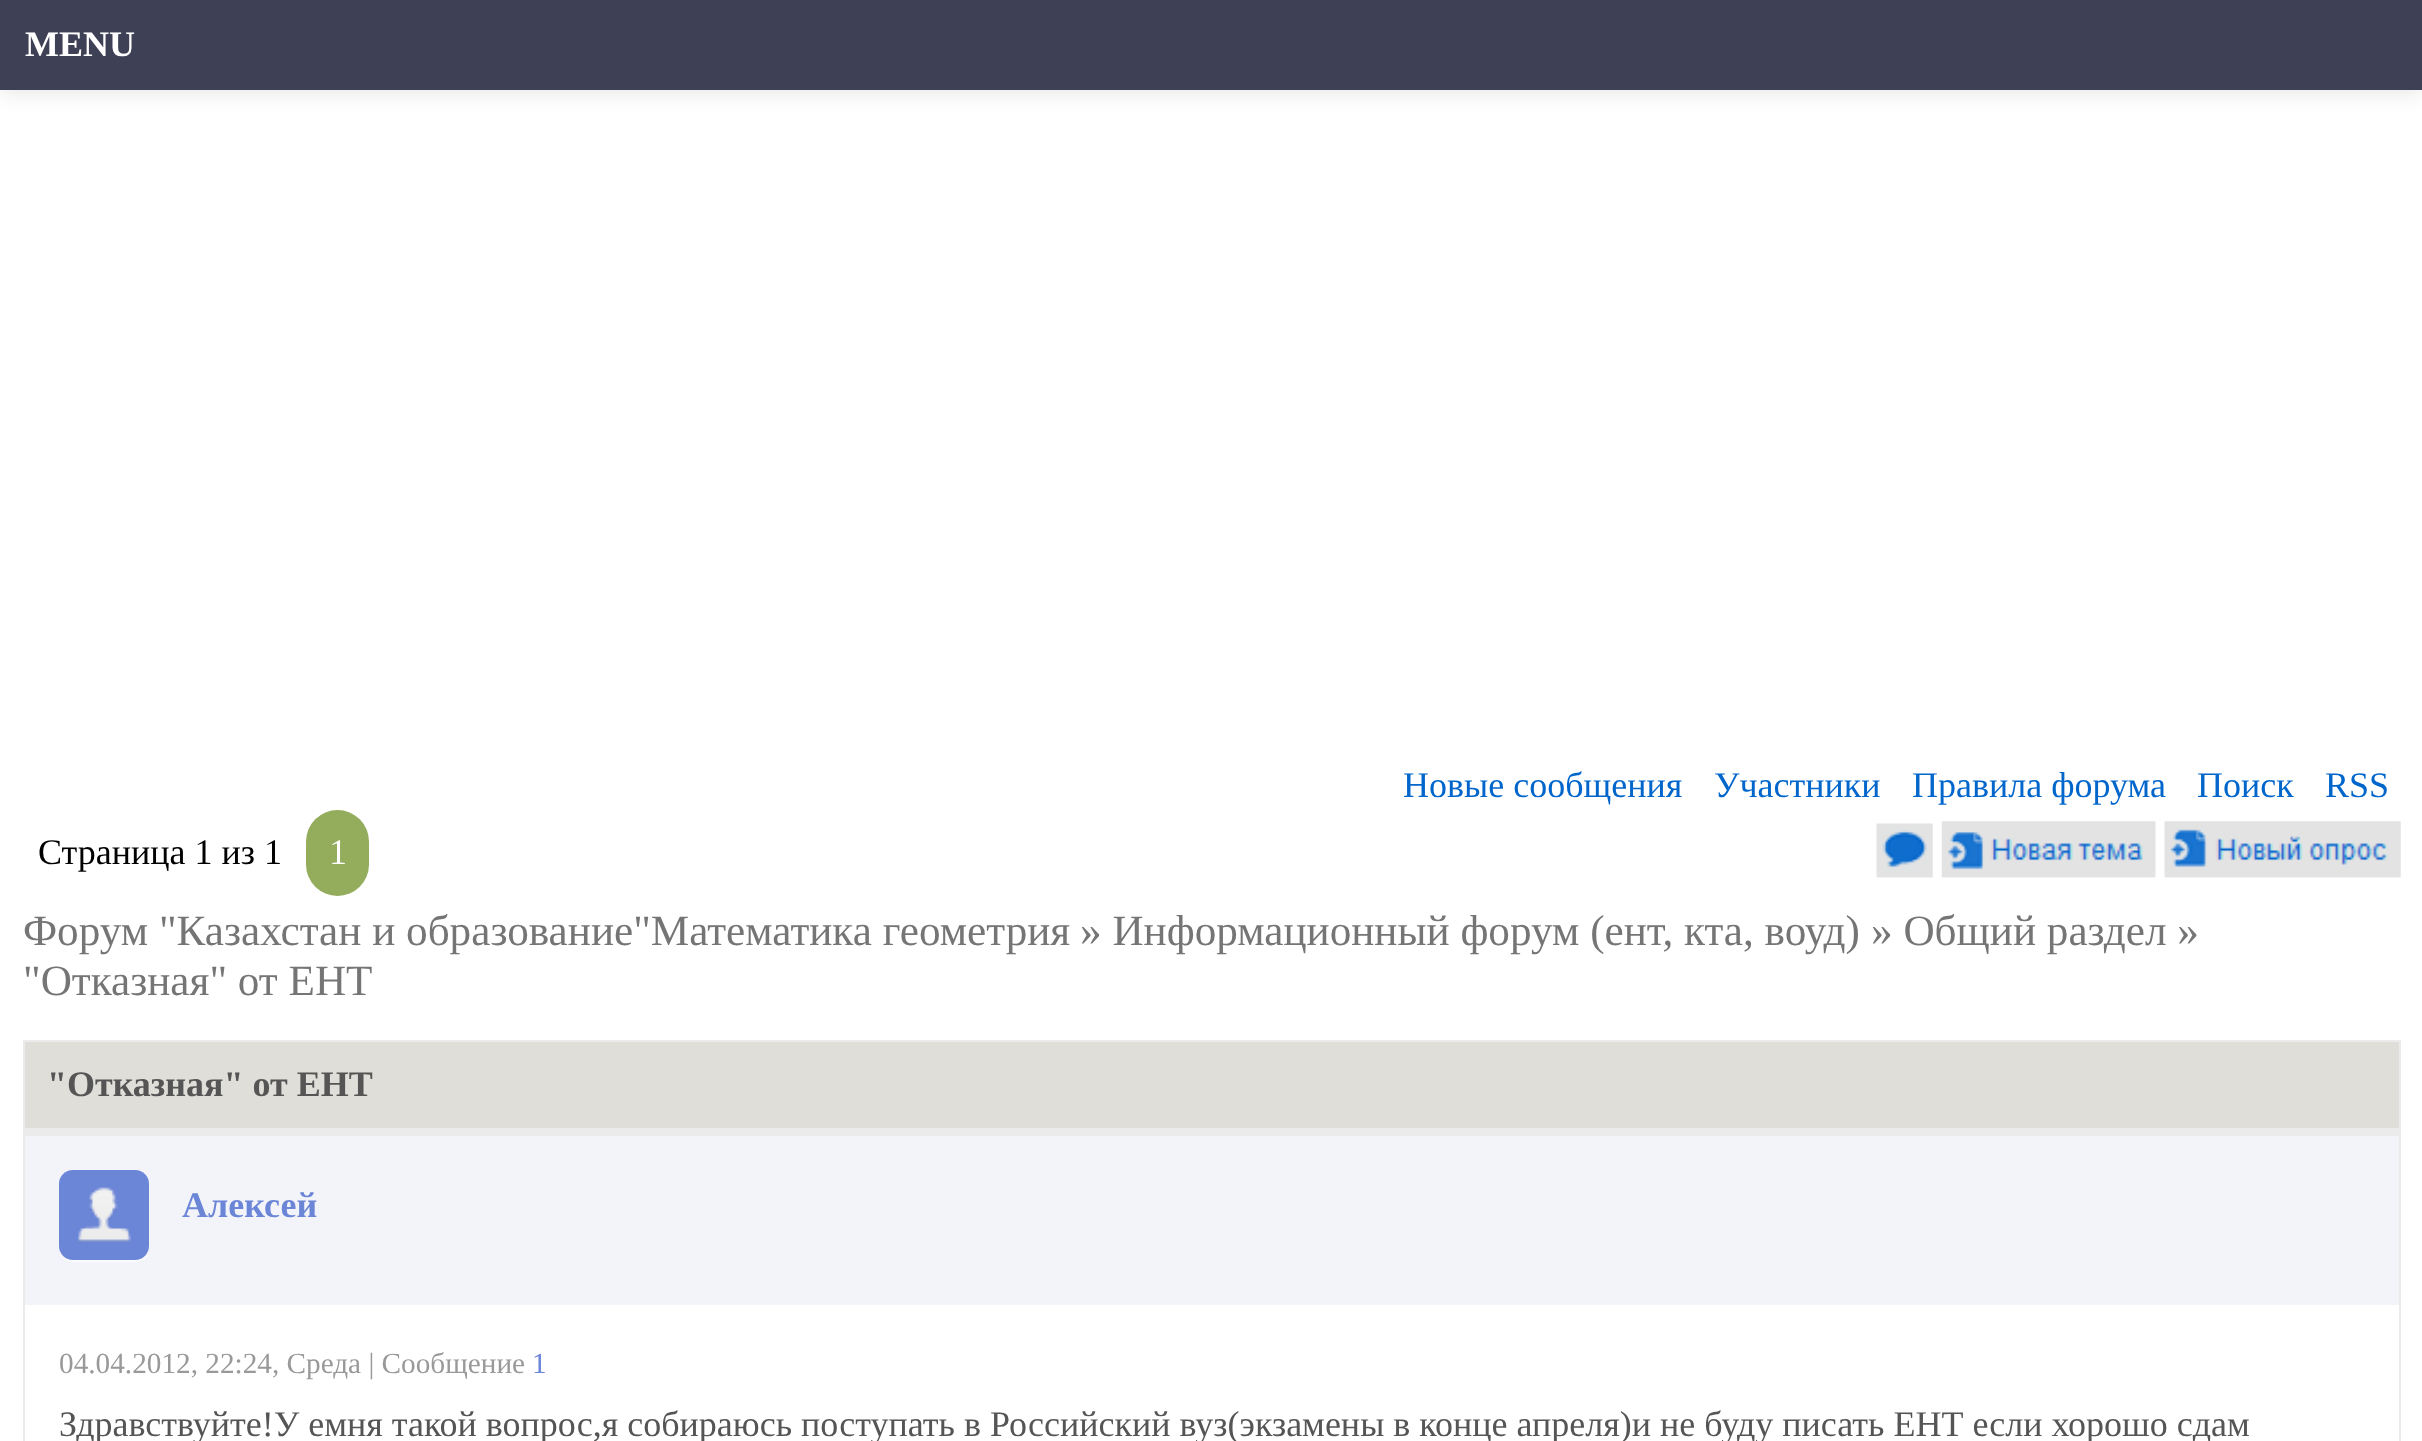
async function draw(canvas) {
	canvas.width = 2422;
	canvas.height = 1441;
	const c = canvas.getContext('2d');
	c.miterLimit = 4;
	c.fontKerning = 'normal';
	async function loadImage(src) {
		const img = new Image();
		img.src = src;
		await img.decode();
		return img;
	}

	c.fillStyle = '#fff';
	c.fillRect(0, 0, 2422, 1441);
	c.fillStyle = '#0000001a';
	c.filter = 'blur(11px)';
	c.beginPath();
	c.rect(0, 2, 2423, 90);
	c.fill();
	c.filter = 'none';
	c.fillStyle = '#3e4156';
	c.fillRect(0, 0, 2422, 90);
	c.font = 'bold 36px Liberation Serif';
	c.fillStyle = '#fff';
	c.fillText('MENU', 25, 56);
	c.font = '36px Liberation Serif';
	c.fillStyle = '#06c';
	for (const [text, x, y] of [
		['Новые сообщения', 1403, 797],
		['Участники', 1714, 797],
		['Правила форума', 1912, 797],
		['Поиск', 2197, 797],
		['RSS', 2325, 797],
	]) {
		c.fillText(text, x, y);
	}
	c.fillStyle = '#000';
	c.fillText('Страница 1 из 1', 38, 864);
	c.fillStyle = '#94ad5d';
	c.beginPath();
	c.roundRect(306, 810, 63, 86, 31.5);
	c.fill();
	c.fillStyle = '#fff';
	c.fillText('1', 329, 864);
	c.drawImage(await loadImage('img1.png'), 1876, 823, 57, 55);
	c.drawImage(await loadImage('img2.png'), 1941, 821, 215, 57);
	c.drawImage(await loadImage('img3.png'), 2164, 821, 237, 57);
	c.font = '43.2px Liberation Serif';
	c.fillStyle = '#757575';
	for (const [text, x, y] of [
		['Форум "Казахстан и образование"Математика геометрия', 23, 945],
		['» Информационный форум (ент, кта, воуд)', 1080, 945],
		['» Общий раздел »', 1871, 945],
		['"Отказная" от ЕНТ', 23, 995],
	]) {
		c.fillText(text, x, y);
	}
	c.fillStyle = '#e0ded8';
	c.beginPath();
	c.rect(24, 1041, 2376, 88);
	c.fill();
	c.strokeStyle = '#ebebeb';
	c.lineWidth = 2;
	c.stroke();
	c.font = 'bold 36px Liberation Serif';
	c.fillStyle = '#555';
	c.fillText('"Отказная" от ЕНТ', 47, 1096);
	c.fillStyle = '#ebebeb';
	c.fillRect(23, 1130, 2378, 4);
	c.strokeRect(24, 1135, 2376, 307);
	c.fillStyle = '#f3f4fa';
	c.fillRect(25, 1136, 2374, 169);
	c.fillStyle = '#fcfcfc';
	c.beginPath();
	c.moveTo(59, 1251);
	c.bezierCurveTo(61, 1257, 66, 1262, 73, 1262);
	c.lineTo(135, 1262);
	c.bezierCurveTo(143, 1262, 149, 1256, 149, 1248);
	c.lineTo(149, 1186);
	c.lineTo(148, 1182);
	c.lineTo(148, 1236);
	c.bezierCurveTo(148, 1245, 150, 1257, 138, 1260);
	c.lineTo(82, 1260);
	c.bezierCurveTo(74, 1260, 63, 1261, 59, 1251);
	c.closePath();
	c.fill();
	c.fillStyle = '#6b85d7';
	c.beginPath();
	c.roundRect(59, 1170, 90, 90, 14);
	c.fill();
	c.drawImage(await loadImage('img4.png'), 78, 1187, 53, 56);
	c.fillText('Алексей', 182, 1217);
	c.font = '29.25px Liberation Serif';
	c.fillStyle = '#999';
	c.fillText('04.04.2012, 22:24, Среда | Сообщение', 59, 1373);
	c.fillStyle = '#6b85d7';
	c.fillText('1', 532, 1373);
	c.font = '36px Liberation Serif';
	c.fillStyle = '#555';
	c.fillText('Здравствуйте!У емня такой вопрос,я собираюсь поступать в Российский вуз(экзамены в конце апреля)и не буду писать ЕНТ если хорошо сдам', 59, 1436);
}

draw(document.querySelector('canvas'));
